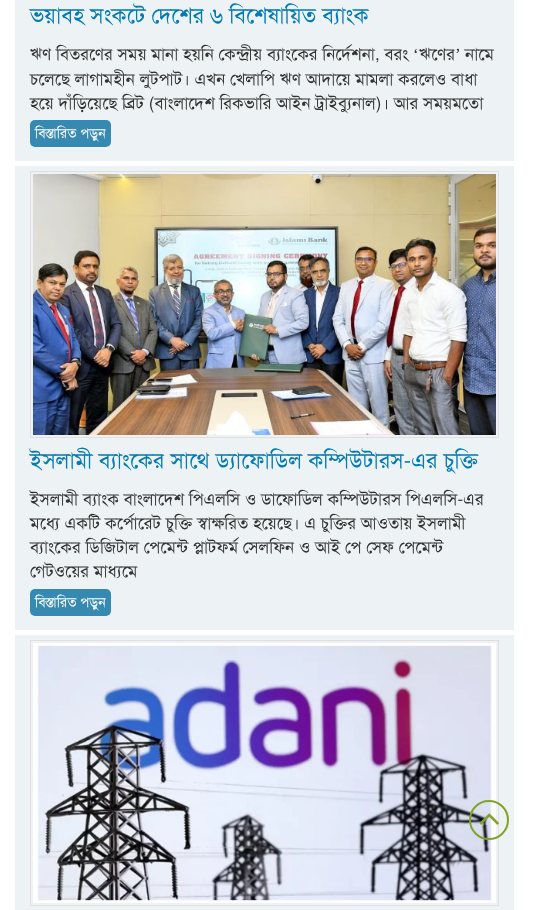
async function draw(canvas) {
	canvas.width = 534;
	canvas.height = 910;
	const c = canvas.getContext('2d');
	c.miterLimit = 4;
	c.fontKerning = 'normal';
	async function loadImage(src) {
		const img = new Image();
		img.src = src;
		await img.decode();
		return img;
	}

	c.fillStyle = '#fff';
	c.fillRect(0, 0, 534, 910);
	c.fillStyle = '#edf3f5';
	c.fillRect(15, 0, 499, 161);
	c.font = '22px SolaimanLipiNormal';
	c.fillStyle = '#027ab2';
	c.fillText('ভয়াবহ সংকটে দেশের ৬ বিশেষায়িত ব্যাংক', 30, 23);
	c.font = '17px SolaimanLipiNormal';
	c.fillStyle = '#333';
	c.fillText('ঋণ বিতরণের সময় মানা হয়নি কেন্দ্রীয় ব্যাংকের নির্দেশনা, বরং', 30, 60);
	c.font = '17px Liberation Serif';
	c.fillText('‘', 413, 60);
	c.font = '17px SolaimanLipiNormal';
	c.fillText('ঋণের', 419, 60);
	c.font = '17px Liberation Serif';
	c.fillText('’', 455, 60);
	c.font = '17px SolaimanLipiNormal';
	for (const [text, x, y] of [
		['নামে', 465, 60],
		['চলেছে লাগামহীন লুটপাট। এখন খেলাপি ঋণ আদায়ে মামলা করলেও বাধা', 30, 85],
		['হয়ে দাঁড়িয়েছে ব্রিট (বাংলাদেশ রিকভারি আইন ট্রাইব্যুনাল)। আর সময়মতো', 30, 109],
	]) {
		c.fillText(text, x, y);
	}
	c.fillStyle = '#3689b0';
	c.beginPath();
	c.roundRect(30, 120, 81, 27, 5);
	c.fill();
	c.font = '14px SolaimanLipiNormal';
	c.fillStyle = '#fff';
	c.fillText('বিস্তারিত পড়ুন', 35, 138);
	c.fillStyle = '#edf3f5';
	c.fillRect(15, 166, 499, 464);
	c.strokeStyle = '#e3dddd';
	c.strokeRect(30.5, 171.5, 468, 266);
	c.drawImage(await loadImage('img1.png'), 33, 174, 463, 261);
	c.font = '22px SolaimanLipiNormal';
	c.fillStyle = '#027ab2';
	c.fillText('ইসলামী ব্যাংকের সাথে ড্যাফোডিল কম্পিউটারস-এর চুক্তি', 30, 468);
	c.font = '17px SolaimanLipiNormal';
	c.fillStyle = '#333';
	for (const [text, x, y] of [
		['ইসলামী ব্যাংক বাংলাদেশ পিএলসি ও ডাফোডিল কম্পিউটারস পিএলসি-এর', 30, 505],
		['মধ্যে একটি কর্পোরেট চুক্তি স্বাক্ষরিত হয়েছে। এ চুক্তির আওতায় ইসলামী', 30, 529],
		['ব্যাংকের ডিজিটাল পেমেন্ট প্লাটফর্ম সেলফিন ও আই পে সেফ পেমেন্ট', 30, 553],
		['গেটওয়ের মাধ্যমে', 30, 577],
	]) {
		c.fillText(text, x, y);
	}
	c.fillStyle = '#3689b0';
	c.beginPath();
	c.roundRect(30, 589, 81, 27, 5);
	c.fill();
	c.font = '14px SolaimanLipiNormal';
	c.fillStyle = '#fff';
	c.fillText('বিস্তারিত পড়ুন', 35, 607);
	c.fillStyle = '#edf3f5';
	c.fillRect(15, 635, 499, 275);
	c.strokeRect(30.5, 640.5, 468, 265);
	c.drawImage(await loadImage('img2.png'), 33, 643, 463, 260);
	c.beginPath();
	c.arc(489, 820, 19, 0, 2 * Math.PI);
	c.strokeStyle = '#84a228';
	c.lineWidth = 2;
	c.stroke();
	c.drawImage(await loadImage('img3.png'), 479, 813, 20, 12);
}

draw(document.querySelector('canvas'));
